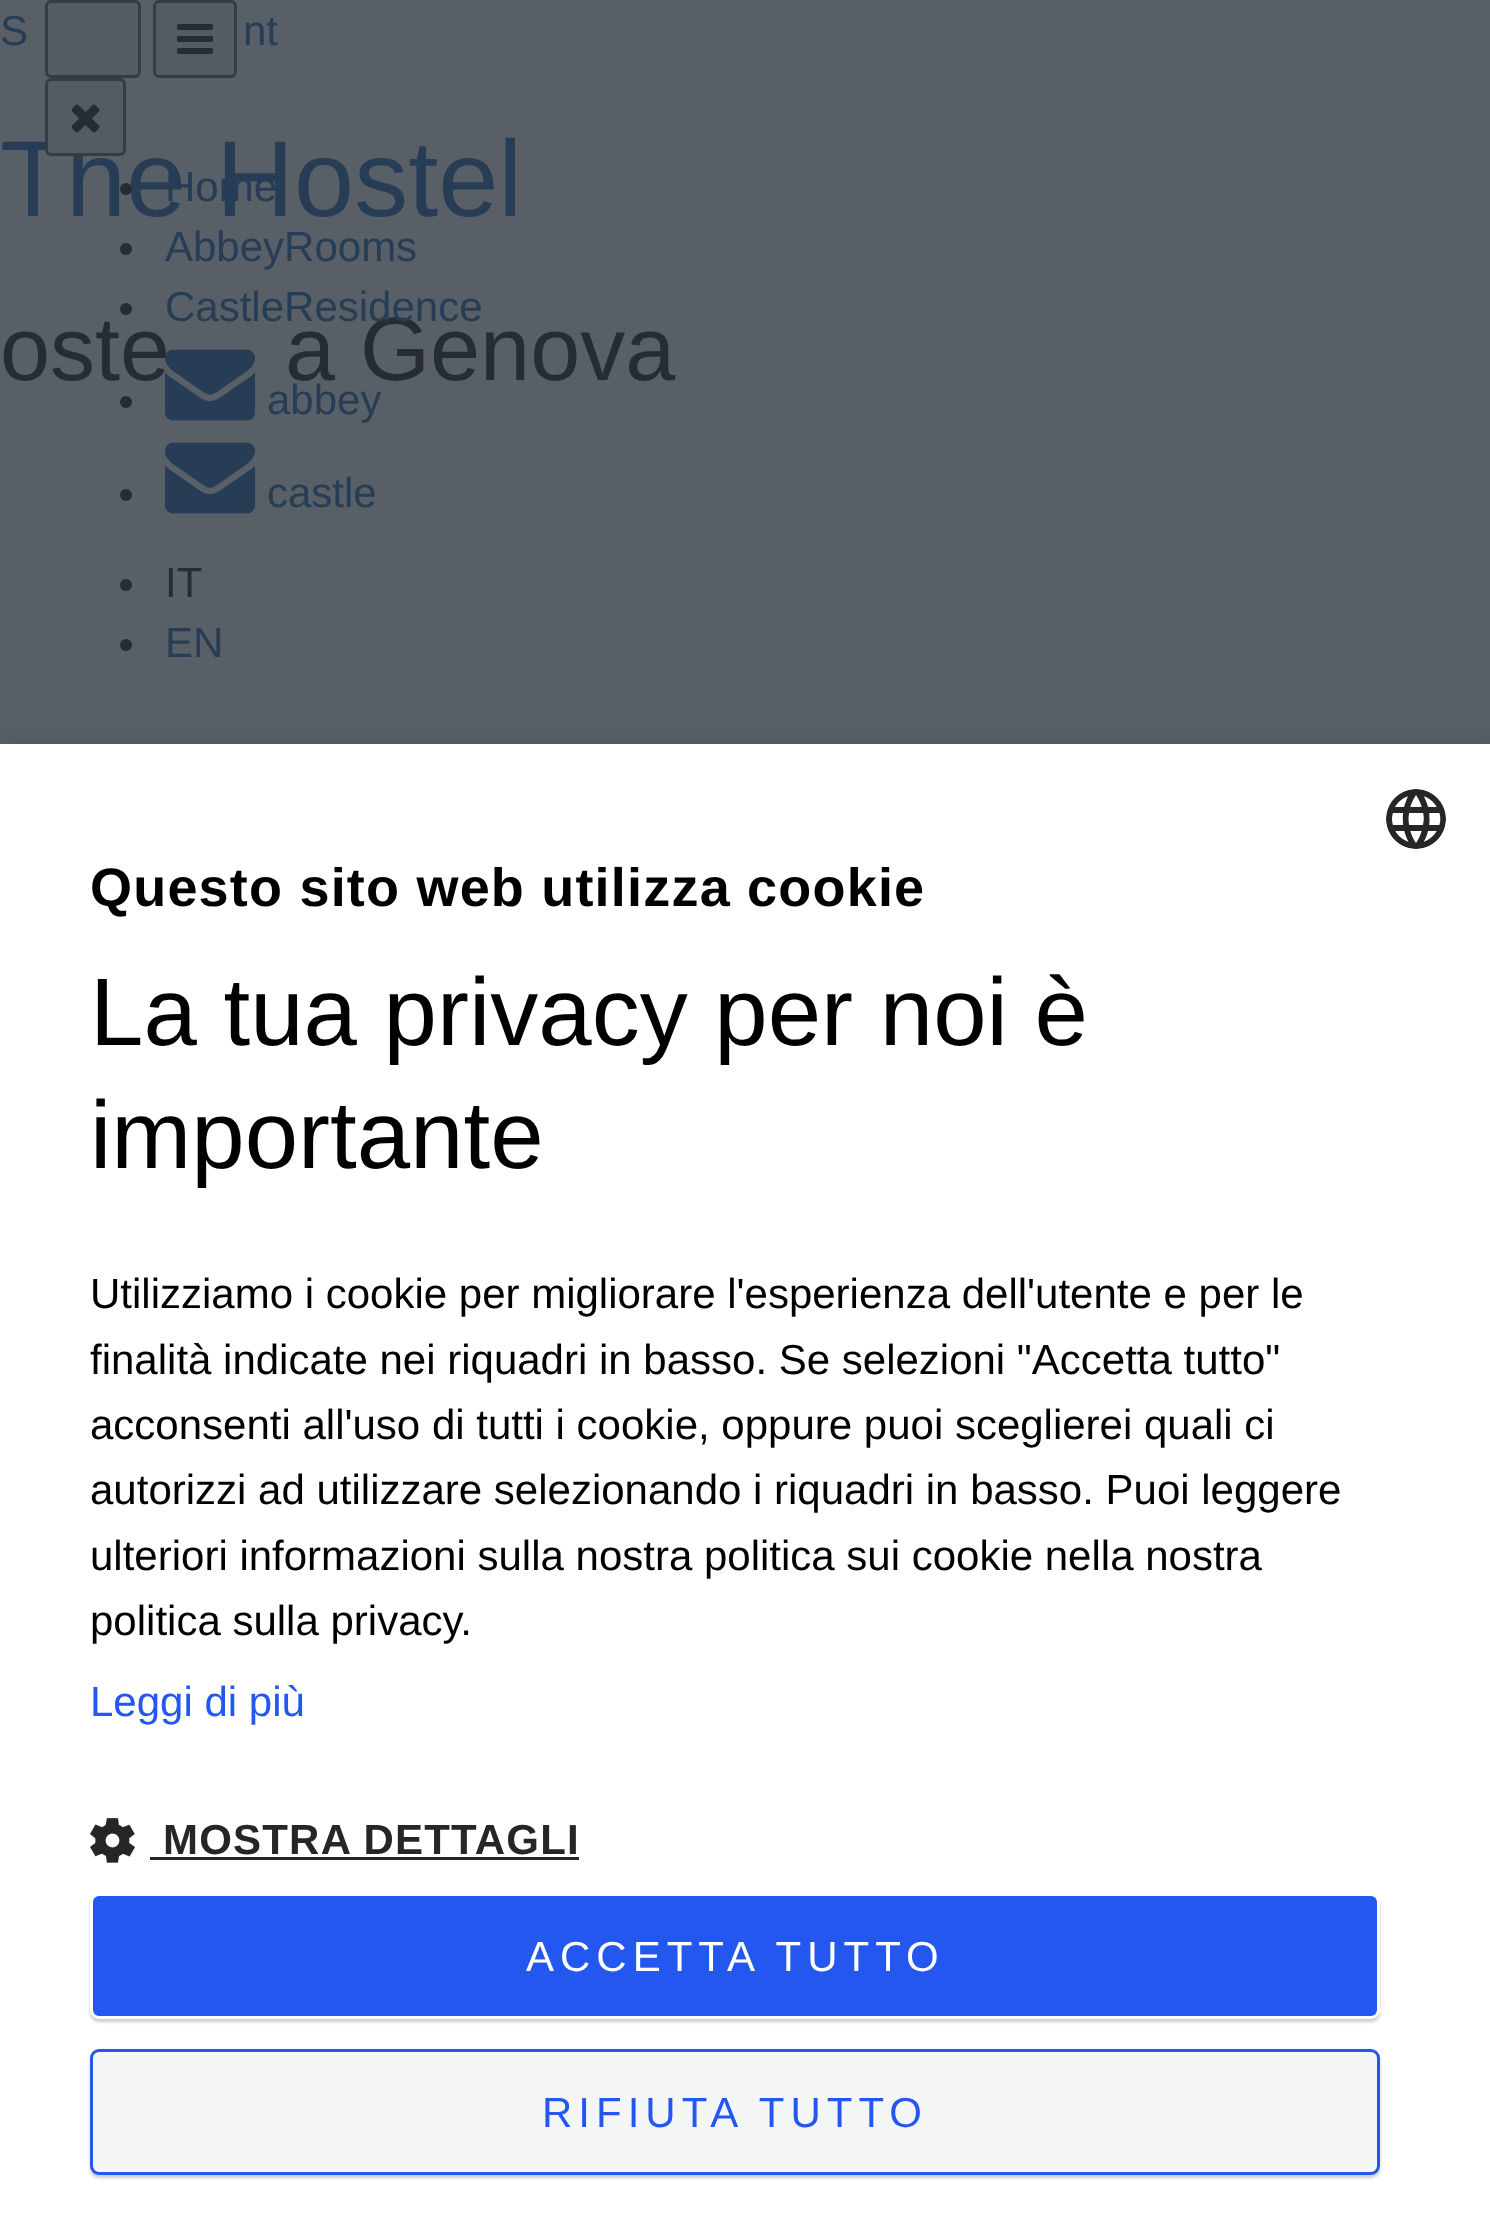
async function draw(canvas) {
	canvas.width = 1490;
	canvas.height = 2234;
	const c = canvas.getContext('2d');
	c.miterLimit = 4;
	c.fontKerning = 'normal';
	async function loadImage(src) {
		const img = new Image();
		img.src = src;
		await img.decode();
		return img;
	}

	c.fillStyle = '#595f67';
	c.fillRect(0, 0, 1490, 2234);
	c.font = '42px Liberation Sans';
	c.fillStyle = '#263d55';
	c.fillText('S', 0, 45);
	c.fillText('nt', 243, 45);
	c.font = '108px Liberation Sans';
	c.fillText('The Hostel', 0, 216);
	c.font = '90px Liberation Sans';
	c.fillStyle = '#262c34';
	c.fillText('oste', 0, 380);
	c.fillText('a Genova', 285, 380);
	c.fillStyle = '#555b63';
	c.beginPath();
	c.roundRect(46.5, 1.5, 93, 75, 4.5);
	c.fill();
	c.strokeStyle = '#363c45';
	c.lineWidth = 3;
	c.stroke();
	c.beginPath();
	c.roundRect(154.5, 1.5, 81, 75, 4.5);
	c.fill();
	c.stroke();
	c.drawImage(await loadImage('img1.png'), 177, 24, 36, 30);
	c.beginPath();
	c.roundRect(46.5, 79.5, 78, 75, 4.5);
	c.fill();
	c.stroke();
	c.drawImage(await loadImage('img2.png'), 71, 104, 29, 29);
	c.fillStyle = '#262c34';
	c.beginPath();
	c.arc(126, 189, 6, 0, 2 * Math.PI);
	c.fill();
	c.font = '42px Liberation Sans';
	c.fillStyle = '#263d55';
	c.fillText('Home', 165, 201);
	c.fillStyle = '#262c34';
	c.beginPath();
	c.arc(126, 249, 6, 0, 2 * Math.PI);
	c.fill();
	c.fillStyle = '#263d55';
	c.fillText('AbbeyRooms', 165, 261);
	c.fillStyle = '#262c34';
	c.beginPath();
	c.arc(126, 309, 6, 0, 2 * Math.PI);
	c.fill();
	c.fillStyle = '#263d55';
	c.fillText('CastleResidence', 165, 321);
	c.fillStyle = '#262c34';
	c.beginPath();
	c.arc(126, 402, 6, 0, 2 * Math.PI);
	c.fill();
	c.drawImage(await loadImage('img3.png'), 165, 349, 90, 72);
	c.fillStyle = '#263d55';
	c.fillText('abbey', 267, 414);
	c.fillStyle = '#262c34';
	c.beginPath();
	c.arc(126, 495, 6, 0, 2 * Math.PI);
	c.fill();
	c.drawImage(await loadImage('img4.png'), 165, 442, 90, 72);
	c.fillStyle = '#263d55';
	c.fillText('castle', 267, 507);
	c.fillStyle = '#262c34';
	c.beginPath();
	c.arc(126, 585, 6, 0, 2 * Math.PI);
	c.fill();
	c.fillText('IT', 165, 597);
	c.beginPath();
	c.arc(126, 645, 6, 0, 2 * Math.PI);
	c.fill();
	c.fillStyle = '#263d55';
	c.fillText('EN', 165, 657);
	c.fillStyle = '#191f2759';
	c.filter = 'blur(12px)';
	c.beginPath();
	c.rect(3, 750, 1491, 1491);
	c.fill();
	c.filter = 'none';
	c.fillStyle = '#fff';
	c.fillRect(0, 744, 1490, 1490);
	c.drawImage(await loadImage('img5.png'), 1386, 789, 60, 60);
	c.letterSpacing = '1.2px';
	c.font = 'bold 54px Liberation Sans';
	c.fillStyle = '#000';
	c.fillText('Questo sito web utilizza cookie', 90, 906);
	c.letterSpacing = '0px';
	c.font = '96px Liberation Sans';
	c.fillText('La tua privacy per noi è', 90, 1045);
	c.fillText('importante', 90, 1168);
	c.font = '42px Liberation Sans';
	for (const [text, x, y] of [
		['Utilizziamo i cookie per migliorare l\'esperienza dell\'utente e per le', 90, 1308],
		['finalità indicate nei riquadri in basso. Se selezioni "Accetta tutto"', 90, 1374],
		['acconsenti all\'uso di tutti i cookie, oppure puoi sceglierei quali ci', 90, 1439],
		['autorizzi ad utilizzare selezionando i riquadri in basso. Puoi leggere', 90, 1504],
		['ulteriori informazioni sulla nostra politica sui cookie nella nostra', 90, 1570],
		['politica sulla privacy.', 90, 1635],
	]) {
		c.fillText(text, x, y);
	}
	c.fillStyle = '#2457f0';
	c.fillText('Leggi di più', 90, 1716);
	c.drawImage(await loadImage('img6.png'), 90, 1818, 45, 45);
	c.letterSpacing = '1.2px';
	c.font = 'bold 42px Liberation Sans';
	c.fillStyle = '#262626';
	c.fillText('MOSTRA DETTAGLI', 163, 1854);
	c.fillRect(150, 1857, 429, 3);
	c.fillStyle = '#00000033';
	c.filter = 'blur(1.5px)';
	c.beginPath();
	c.roundRect(90, 1896, 1290, 126, 9);
	c.fill();
	c.filter = 'none';
	c.fillStyle = '#2457f0';
	c.beginPath();
	c.roundRect(91.5, 1894.5, 1287, 123, 7.5);
	c.fill();
	c.strokeStyle = '#fff';
	c.stroke();
	c.letterSpacing = '6px';
	c.font = '42px Liberation Sans';
	c.fillStyle = '#fff';
	c.fillText('ACCETTA TUTTO', 526, 1971);
	c.fillStyle = '#00000033';
	c.filter = 'blur(1.5px)';
	c.beginPath();
	c.roundRect(90, 2052, 1290, 126, 9);
	c.fill();
	c.filter = 'none';
	c.fillStyle = '#f3f6f4';
	c.beginPath();
	c.roundRect(91.5, 2050.5, 1287, 123, 7.5);
	c.fill();
	c.strokeStyle = '#2457f0';
	c.stroke();
	c.fillStyle = '#2457f0';
	c.fillText('RIFIUTA TUTTO', 542, 2127);
}

draw(document.querySelector('canvas'));
